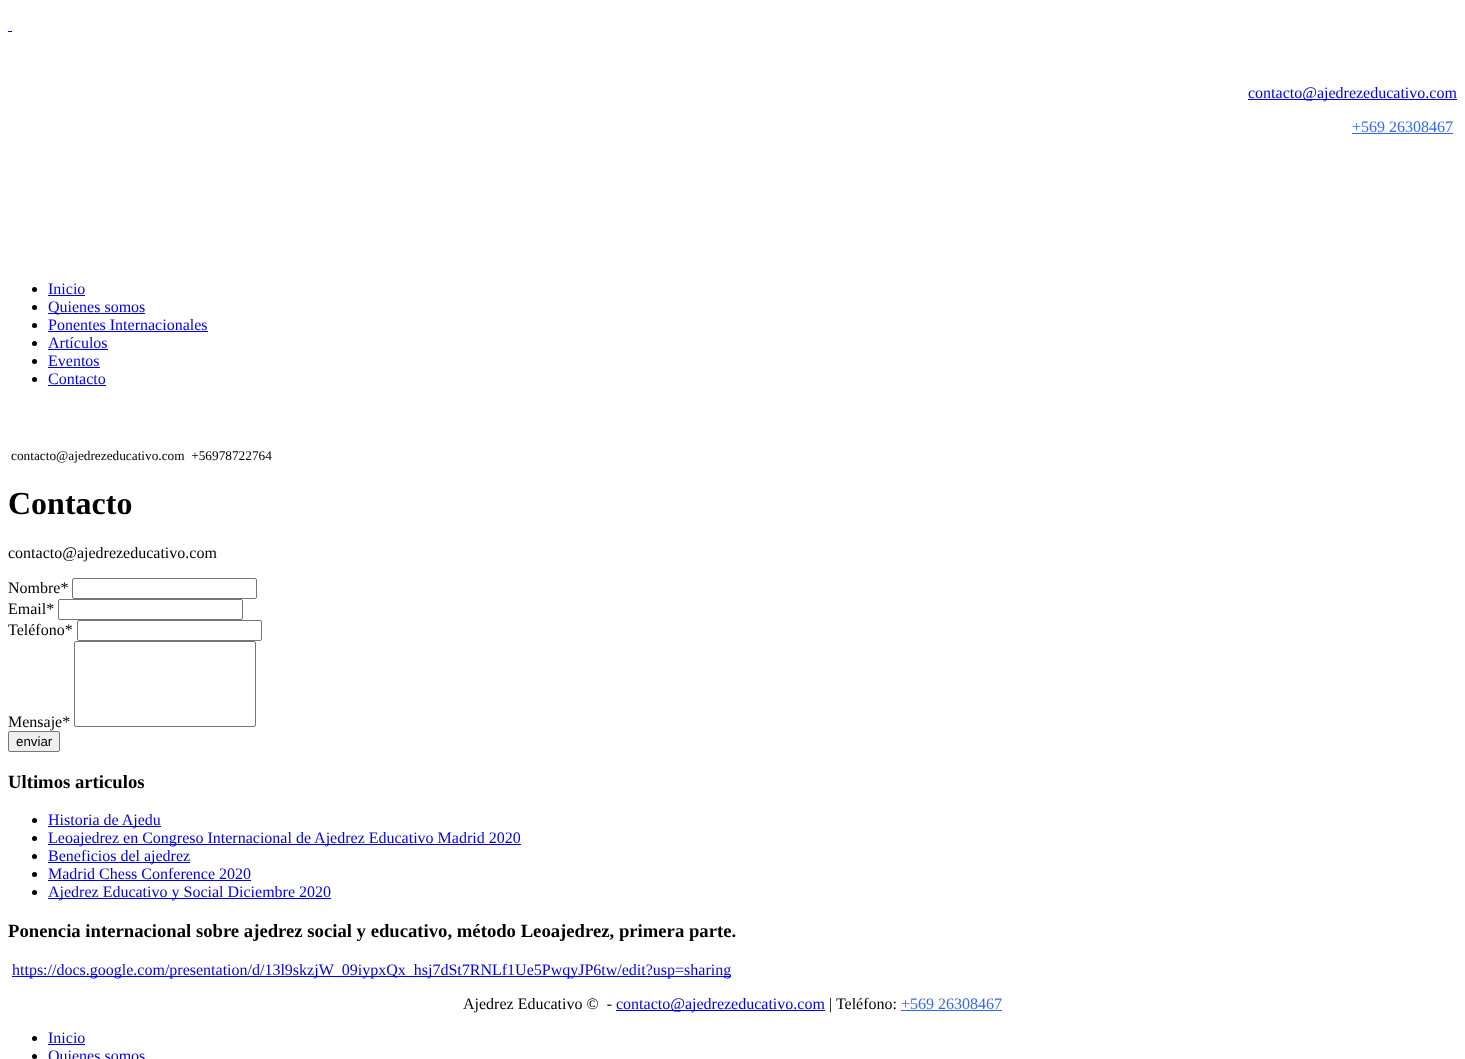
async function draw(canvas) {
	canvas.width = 1465;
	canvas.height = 1059;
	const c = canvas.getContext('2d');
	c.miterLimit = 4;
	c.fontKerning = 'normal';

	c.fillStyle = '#fff';
	c.fillRect(0, 0, 1465, 1059);
	c.fillStyle = '#00e';
	c.fillRect(8, 31, 4, 1);
	c.fillRect(1248, 99, 209, 1);
	c.font = '16px Liberation Serif';
	c.fillText('contacto@ajedrezeducativo.com', 1248, 98);
	c.fillStyle = '#36f';
	c.fillText('+569 26308467', 1352, 132);
	c.fillRect(1352, 133, 101, 1);
	c.fillStyle = '#000';
	c.beginPath();
	c.arc(34.5, 289.5, 2.5, 0, 2 * Math.PI);
	c.fill();
	c.fillStyle = '#00e';
	c.fillText('Inicio', 48, 294);
	c.fillRect(48, 295, 37, 1);
	c.fillStyle = '#000';
	c.beginPath();
	c.arc(34.5, 307.5, 2.5, 0, 2 * Math.PI);
	c.fill();
	c.fillStyle = '#00e';
	c.fillRect(48, 313, 97, 1);
	c.fillText('Quienes somos', 48, 312);
	c.fillStyle = '#000';
	c.beginPath();
	c.arc(34.5, 325.5, 2.5, 0, 2 * Math.PI);
	c.fill();
	c.fillStyle = '#00e';
	c.fillText('Ponentes Internacionales', 48, 330);
	c.fillRect(48, 331, 160, 1);
	c.fillStyle = '#000';
	c.beginPath();
	c.arc(34.5, 343.5, 2.5, 0, 2 * Math.PI);
	c.fill();
	c.fillStyle = '#00e';
	c.fillText('Artículos', 48, 348);
	c.fillRect(48, 349, 60, 1);
	c.fillStyle = '#000';
	c.beginPath();
	c.arc(34.5, 361.5, 2.5, 0, 2 * Math.PI);
	c.fill();
	c.fillStyle = '#00e';
	c.fillText('Eventos', 48, 366);
	c.fillRect(48, 367, 52, 1);
	c.fillStyle = '#000';
	c.beginPath();
	c.arc(34.5, 379.5, 2.5, 0, 2 * Math.PI);
	c.fill();
	c.fillStyle = '#00e';
	c.fillText('Contacto', 48, 384);
	c.fillRect(48, 385, 58, 1);
	c.font = '13.3px Liberation Serif';
	c.fillStyle = '#000';
	c.fillText('contacto@ajedrezeducativo.com  +56978722764', 11, 460);
	c.font = 'bold 32px Liberation Serif';
	c.fillText('Contacto', 8, 514);
	c.font = '16px Liberation Serif';
	c.fillText('contacto@ajedrezeducativo.com', 8, 558);
	c.fillText('Nombre*', 8, 593);
	c.beginPath();
	c.roundRect(72.5, 578.5, 184, 20, 1.5);
	c.strokeStyle = '#767676';
	c.stroke();
	c.fillText('Email*', 8, 614);
	c.beginPath();
	c.roundRect(58.5, 599.5, 184, 20, 1.5);
	c.stroke();
	c.fillText('Teléfono*', 8, 635);
	c.beginPath();
	c.roundRect(77.5, 620.5, 184, 20, 1.5);
	c.stroke();
	c.fillText('Mensaje*', 8, 727);
	c.beginPath();
	c.roundRect(74.5, 641.5, 181, 85, 1.5);
	c.stroke();
	c.fillStyle = '#efefef';
	c.beginPath();
	c.roundRect(8.5, 731.5, 51, 20, 1.5);
	c.fill();
	c.stroke();
	c.font = '13.3px Liberation Sans';
	c.fillStyle = '#000';
	c.fillText('enviar', 16, 746);
	c.font = 'bold 18.7px Liberation Serif';
	c.fillText('Ultimos articulos', 8, 788);
	c.beginPath();
	c.arc(34.5, 820.5, 2.5, 0, 2 * Math.PI);
	c.fill();
	c.fillStyle = '#00e';
	c.fillRect(48, 826, 113, 1);
	c.font = '16px Liberation Serif';
	c.fillText('Historia de Ajedu', 48, 825);
	c.fillStyle = '#000';
	c.beginPath();
	c.arc(34.5, 838.5, 2.5, 0, 2 * Math.PI);
	c.fill();
	c.fillStyle = '#00e';
	c.fillRect(48, 844, 473, 1);
	c.fillText('Leoajedrez en Congreso Internacional de Ajedrez Educativo Madrid 2020', 48, 843);
	c.fillStyle = '#000';
	c.beginPath();
	c.arc(34.5, 856.5, 2.5, 0, 2 * Math.PI);
	c.fill();
	c.fillStyle = '#00e';
	c.fillRect(48, 862, 142, 1);
	c.fillText('Beneficios del ajedrez', 48, 861);
	c.fillStyle = '#000';
	c.beginPath();
	c.arc(34.5, 874.5, 2.5, 0, 2 * Math.PI);
	c.fill();
	c.fillStyle = '#00e';
	c.fillText('Madrid Chess Conference 2020', 48, 879);
	c.fillRect(48, 880, 203, 1);
	c.fillStyle = '#000';
	c.beginPath();
	c.arc(34.5, 892.5, 2.5, 0, 2 * Math.PI);
	c.fill();
	c.fillStyle = '#00e';
	c.fillRect(48, 898, 283, 1);
	c.fillText('Ajedrez Educativo y Social Diciembre 2020', 48, 897);
	c.font = 'bold 18.7px Liberation Serif';
	c.fillStyle = '#000';
	c.fillText('Ponencia internacional sobre ajedrez social y educativo, método Leoajedrez, primera parte.', 8, 937);
	c.fillStyle = '#00e';
	c.fillRect(12, 976, 719, 1);
	c.font = '16px Liberation Serif';
	c.fillText('https://docs.google.com/presentation/d/13l9skzjW_09iypxQx_hsj7dSt7RNLf1Ue5PwqyJP6tw/edit?usp=sharing', 12, 975);
	c.fillStyle = '#000';
	c.fillText('Ajedrez Educativo ©  -', 463, 1009);
	c.fillStyle = '#00e';
	c.fillRect(616, 1010, 209, 1);
	c.fillText('contacto@ajedrezeducativo.com', 616, 1009);
	c.fillStyle = '#000';
	c.fillText('| Teléfono:', 829, 1009);
	c.fillStyle = '#36f';
	c.fillText('+569 26308467', 901, 1009);
	c.fillRect(901, 1010, 101, 1);
	c.fillStyle = '#000';
	c.beginPath();
	c.arc(34.5, 1038.5, 2.5, 0, 2 * Math.PI);
	c.fill();
	c.fillStyle = '#00e';
	c.fillText('Inicio', 48, 1043);
	c.fillRect(48, 1044, 37, 1);
	c.fillStyle = '#000';
	c.beginPath();
	c.arc(34.5, 1056.5, 2.5, 0, 2 * Math.PI);
	c.fill();
	c.fillStyle = '#00e';
	c.fillText('Quienes somos', 48, 1061);
}

draw(document.querySelector('canvas'));
